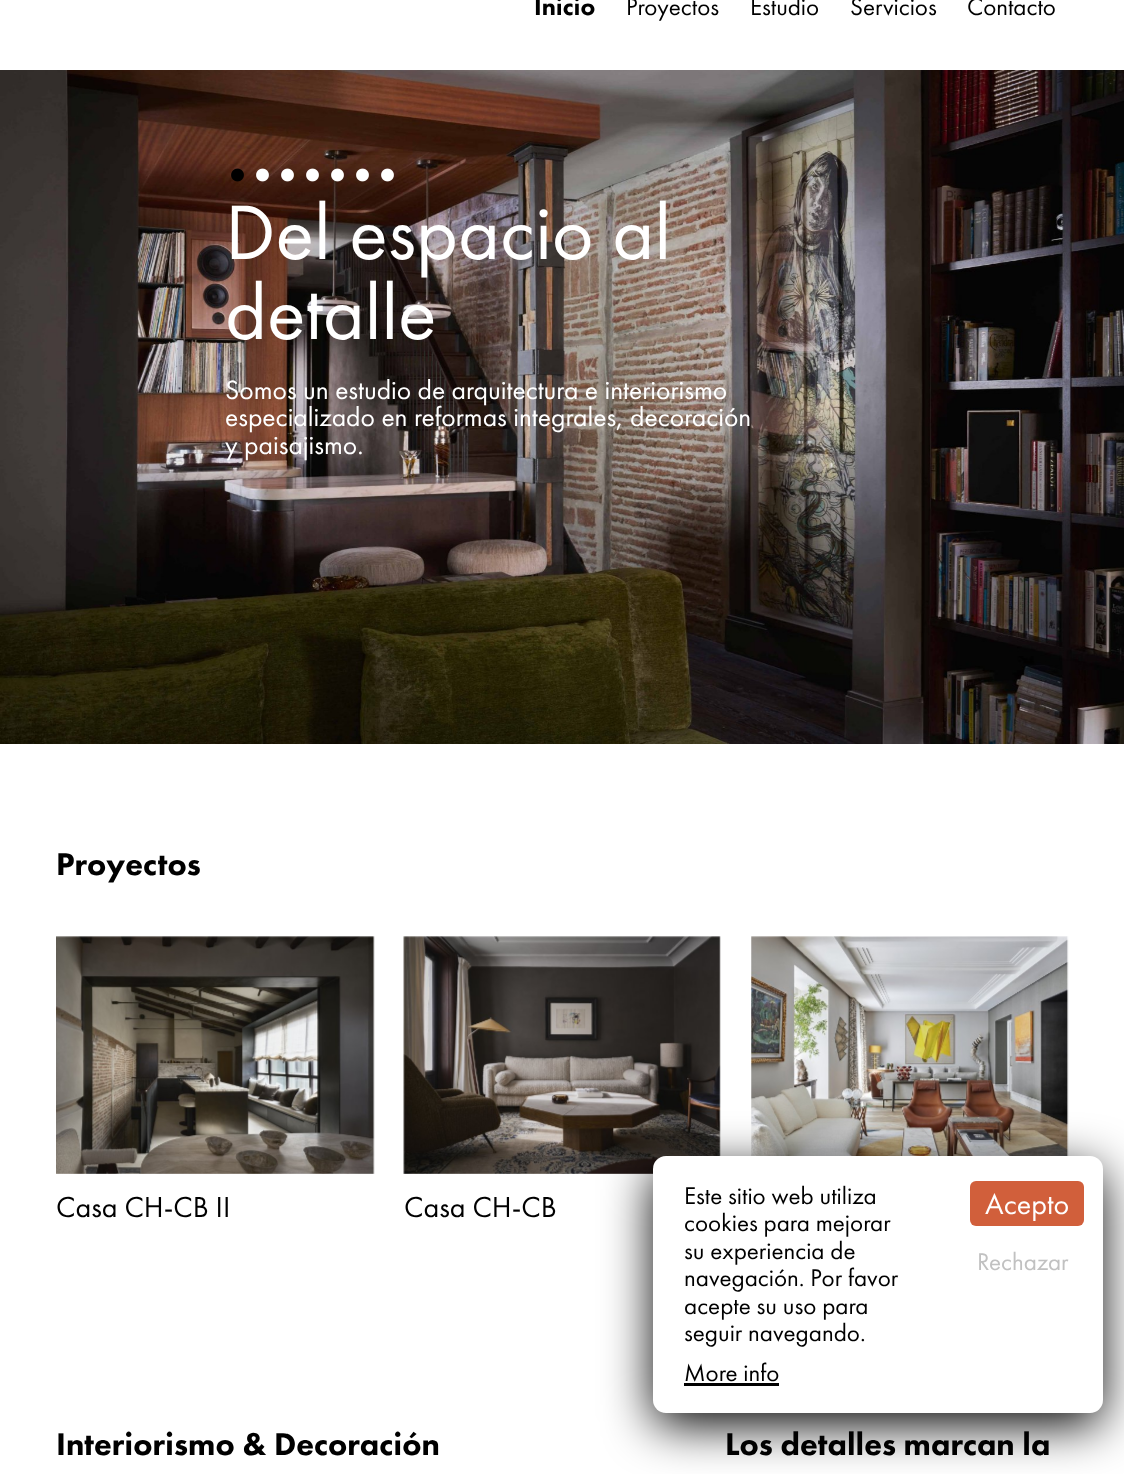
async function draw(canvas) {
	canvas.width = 1124;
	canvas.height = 1474;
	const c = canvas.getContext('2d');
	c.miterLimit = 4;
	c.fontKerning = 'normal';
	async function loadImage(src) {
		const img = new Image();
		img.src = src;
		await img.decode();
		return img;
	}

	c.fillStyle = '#fff';
	c.fillRect(0, 0, 1124, 1474);
	c.font = '900 25px Futura PT';
	c.fillStyle = '#000';
	c.fillText('Inicio', 534, 15);
	c.font = '25px Futura PT';
	for (const [text, x, y] of [
		['Proyectos', 626, 15],
		['Estudio', 750, 15],
		['Servicios', 850, 15],
		['Contacto', 967, 15],
	]) {
		c.fillText(text, x, y);
	}
	c.drawImage(await loadImage('img1.png'), 0, 70, 1124, 674);
	c.drawImage(await loadImage('img2.png'), 231, 168, 13, 14);
	c.drawImage(await loadImage('img3.png'), 256, 168, 13, 14);
	c.drawImage(await loadImage('img4.png'), 281, 168, 13, 14);
	c.drawImage(await loadImage('img5.png'), 306, 168, 13, 14);
	c.drawImage(await loadImage('img6.png'), 331, 168, 13, 14);
	c.drawImage(await loadImage('img7.png'), 356, 168, 13, 14);
	c.drawImage(await loadImage('img8.png'), 381, 168, 13, 14);
	c.font = '80px Futura PT';
	c.fillStyle = '#fff';
	c.fillText('Del espacio al', 225, 259);
	c.fillText('detalle', 225, 339);
	c.font = '27.5px Futura PT';
	for (const [text, x, y] of [
		['Somos un estudio de arquitectura e interiorismo', 225, 399],
		['especializado en reformas integrales, decoración', 225, 426],
		['y paisajismo.', 225, 454],
	]) {
		c.fillText(text, x, y);
	}
	c.font = '900 32.5px Futura PT';
	c.fillStyle = '#000';
	c.fillText('Proyectos', 56, 875);
	c.drawImage(await loadImage('img9.png'), 751, 936, 318, 220);
	c.drawImage(await loadImage('img10.png'), 56, 936, 319, 238);
	c.font = '30px Futura PT';
	c.fillText('Casa CH-CB II', 56, 1217);
	c.drawImage(await loadImage('img11.png'), 403, 936, 318, 238);
	c.fillText('Casa CH-CB', 404, 1217);
	c.font = '900 32.5px Futura PT';
	c.fillText('Interiorismo & Decoración', 56, 1455);
	c.fillText('Los detalles marcan la', 725, 1455);
	c.filter = 'blur(24.5px)';
	c.beginPath();
	c.roundRect(654, 1170, 447, 254, 11);
	c.fill();
	c.filter = 'none';
	c.fillStyle = '#fff';
	c.beginPath();
	c.roundRect(653, 1156, 450, 257, 13);
	c.fill();
	c.font = '25px Futura PT';
	c.fillStyle = '#000';
	for (const [text, x, y] of [
		['Este sitio web utiliza', 684, 1204],
		['cookies para mejorar', 684, 1231],
		['su experiencia de', 684, 1259],
		['navegación. Por favor', 684, 1286],
		['acepte su uso para', 684, 1314],
		['seguir navegando.', 684, 1341],
		['More info', 684, 1381],
	]) {
		c.fillText(text, x, y);
	}
	c.fillRect(684, 1383, 95, 3);
	c.fillStyle = '#d15f3b';
	c.beginPath();
	c.roundRect(970, 1181, 114, 45, 6);
	c.fill();
	c.font = '30px Futura PT';
	c.fillStyle = '#fff';
	c.fillText('Acepto', 985, 1214);
	c.font = '25px Futura PT';
	c.fillStyle = '#c1c1c1';
	c.fillText('Rechazar', 977, 1270);
}

draw(document.querySelector('canvas'));
